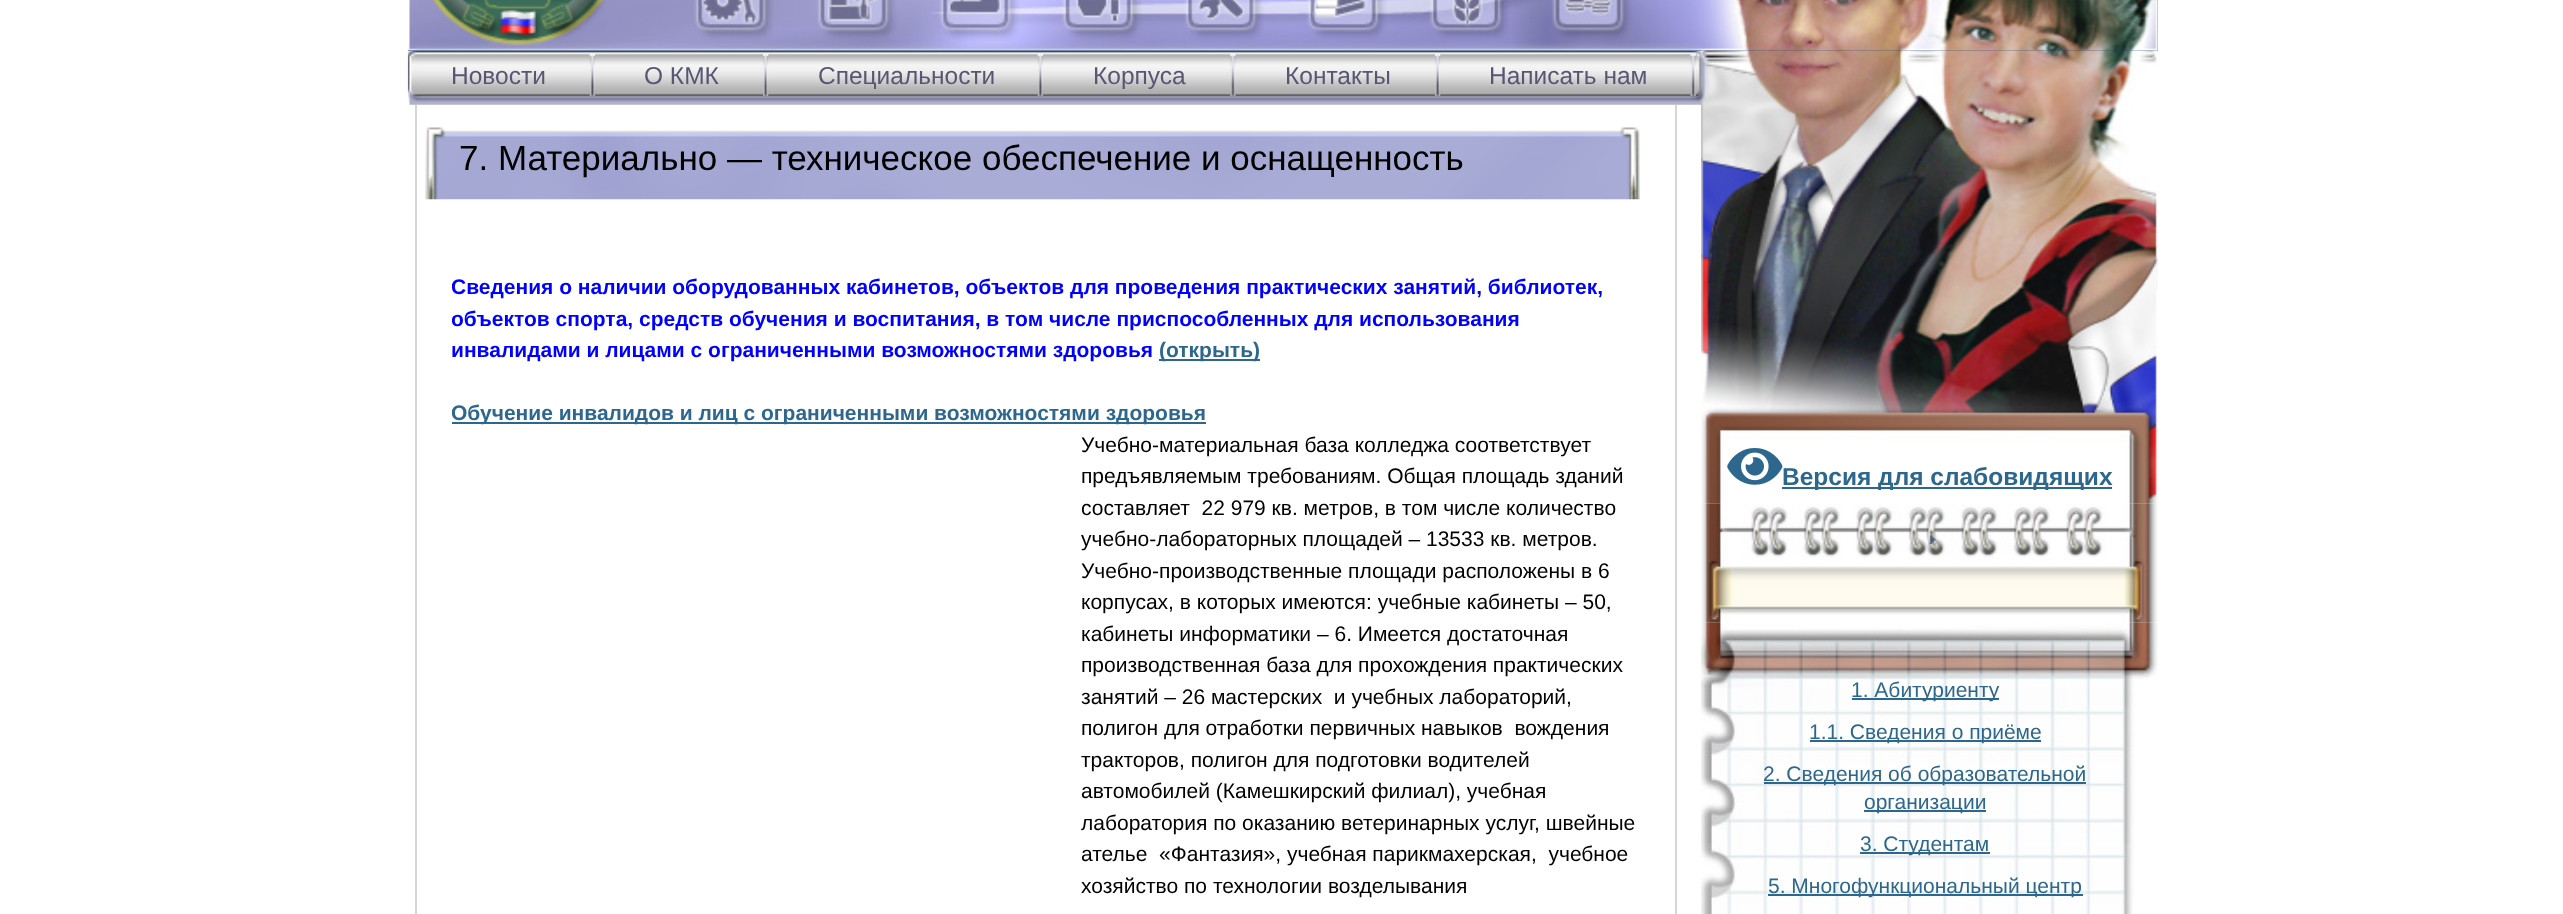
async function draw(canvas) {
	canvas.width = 2563;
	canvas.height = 914;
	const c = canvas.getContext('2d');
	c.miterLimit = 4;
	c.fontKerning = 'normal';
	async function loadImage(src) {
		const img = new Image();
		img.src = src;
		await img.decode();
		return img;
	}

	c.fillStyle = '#fff';
	c.fillRect(0, 0, 2563, 914);
	c.drawImage(await loadImage('img1.png'), 407, 0, 1, 51);
	c.fillStyle = '#134377';
	c.fillRect(408, 0, 1750, 51);
	c.drawImage(await loadImage('img2.png'), 408, 0, 1750, 51);
	c.drawImage(await loadImage('img3.png'), 432, 0, 174, 46);
	c.drawImage(await loadImage('img4.png'), 407, 51, 1294, 54);
	c.font = '24.5px Liberation Sans';
	c.fillStyle = '#575773';
	c.fillText('Новости', 451, 84);
	c.drawImage(await loadImage('img5.png'), 589, 54, 6, 42);
	c.fillText('О КМК', 644, 84);
	c.drawImage(await loadImage('img6.png'), 763, 54, 6, 42);
	c.fillText('Специальности', 818, 84);
	c.drawImage(await loadImage('img5.png'), 1037, 54, 6, 42);
	c.fillText('Корпуса', 1093, 84);
	c.drawImage(await loadImage('img7.png'), 1230, 54, 6, 42);
	c.fillText('Контакты', 1285, 84);
	c.drawImage(await loadImage('img8.png'), 1435, 54, 6, 42);
	c.fillText('Написать нам', 1489, 84);
	c.drawImage(await loadImage('img9.png'), 1690, 54, 6, 42);
	c.fillStyle = '#d6d6d6';
	c.fillRect(1675, 105, 2, 809);
	c.fillRect(415, 105, 2, 809);
	c.drawImage(await loadImage('img10.png'), 425, 127, 1215, 73);
	c.font = '35px Liberation Sans';
	c.fillStyle = '#000';
	c.fillText('7. Материально — техническое обеспечение и оснащенность', 459, 170);
	c.save();
	c.beginPath();
	c.rect(452, 210, 1188, 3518);
	c.clip();
	c.font = 'bold 21px Liberation Sans';
	c.fillStyle = '#00f';
	c.fillText('Сведения о наличии оборудованных кабинетов, объектов для проведения практических занятий, библиотек,', 451, 294);
	c.fillText('объектов спорта, средств обучения и воспитания, в том числе приспособленных для использования', 451, 326);
	c.restore();
	c.font = 'bold 21px Liberation Sans';
	c.fillStyle = '#00f';
	c.fillText('инвалидами и лицами с ограниченными возможностями здоровья', 451, 357);
	c.fillStyle = '#2d678d';
	c.fillRect(1159, 359, 101, 2);
	c.fillText('(открыть)', 1159, 357);
	c.fillRect(452, 422, 754, 2);
	c.save();
	c.beginPath();
	c.rect(452, 210, 1188, 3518);
	c.clip();
	c.fillText('Обучение инвалидов и лиц с ограниченными возможностями здоровья', 451, 420);
	c.restore();
	c.font = '21px Liberation Sans';
	c.fillStyle = '#000';
	for (const [text, x, y] of [
		['Учебно-материальная база колледжа соответствует', 1081, 452],
		['предъявляемым требованиям. Общая площадь зданий', 1081, 483],
		['составляет  22 979 кв. метров, в том числе количество', 1081, 515],
		['учебно-лабораторных площадей – 13533 кв. метров.', 1081, 546],
		['Учебно-производственные площади расположены в 6', 1081, 578],
		['корпусах, в которых имеются: учебные кабинеты – 50,', 1081, 609],
		['кабинеты информатики – 6. Имеется достаточная', 1081, 641],
		['производственная база для прохождения практических', 1081, 672],
		['занятий – 26 мастерских  и учебных лабораторий,', 1081, 704],
		['полигон для отработки первичных навыков  вождения', 1081, 735],
		['тракторов, полигон для подготовки водителей', 1081, 767],
		['автомобилей (Камешкирский филиал), учебная', 1081, 798],
		['лаборатория по оказанию ветеринарных услуг, швейные', 1081, 830],
		['ателье  «Фантазия», учебная парикмахерская,  учебное', 1081, 861],
		['хозяйство по технологии возделывания', 1081, 893],
	]) {
		c.fillText(text, x, y);
	}
	c.drawImage(await loadImage('img11.png'), 1701, 50, 457, 454);
	c.drawImage(await loadImage('img12.png'), 1727, 448, 56, 37);
	c.fillStyle = '#2d678d';
	c.fillRect(1782, 487, 330, 2);
	c.font = 'bold 24.5px Liberation Sans';
	c.fillText('Версия для слабовидящих', 1782, 485);
	c.drawImage(await loadImage('img13.png'), 1701, 503, 457, 120);
	c.drawImage(await loadImage('img14.png'), 1930, 534, 6, 10);
	c.drawImage(await loadImage('img15.png'), 1701, 622, 457, 292);
	c.fillRect(1852, 698, 147, 2);
	c.font = '21px Liberation Sans';
	c.fillText('1. Абитуриенту', 1851, 697);
	c.fillRect(1810, 740, 231, 2);
	c.fillText('1.1. Сведения о приёме', 1809, 739);
	c.fillRect(1764, 782, 322, 2);
	c.fillText('2. Сведения об образовательной', 1763, 781);
	c.fillRect(1864, 810, 122, 2);
	c.fillText('организации', 1864, 809);
	c.fillRect(1860, 852, 130, 2);
	c.fillText('3. Студентам', 1860, 851);
	c.fillRect(1768, 894, 315, 2);
	c.fillText('5. Многофункциональный центр', 1768, 893);
}

draw(document.querySelector('canvas'));
